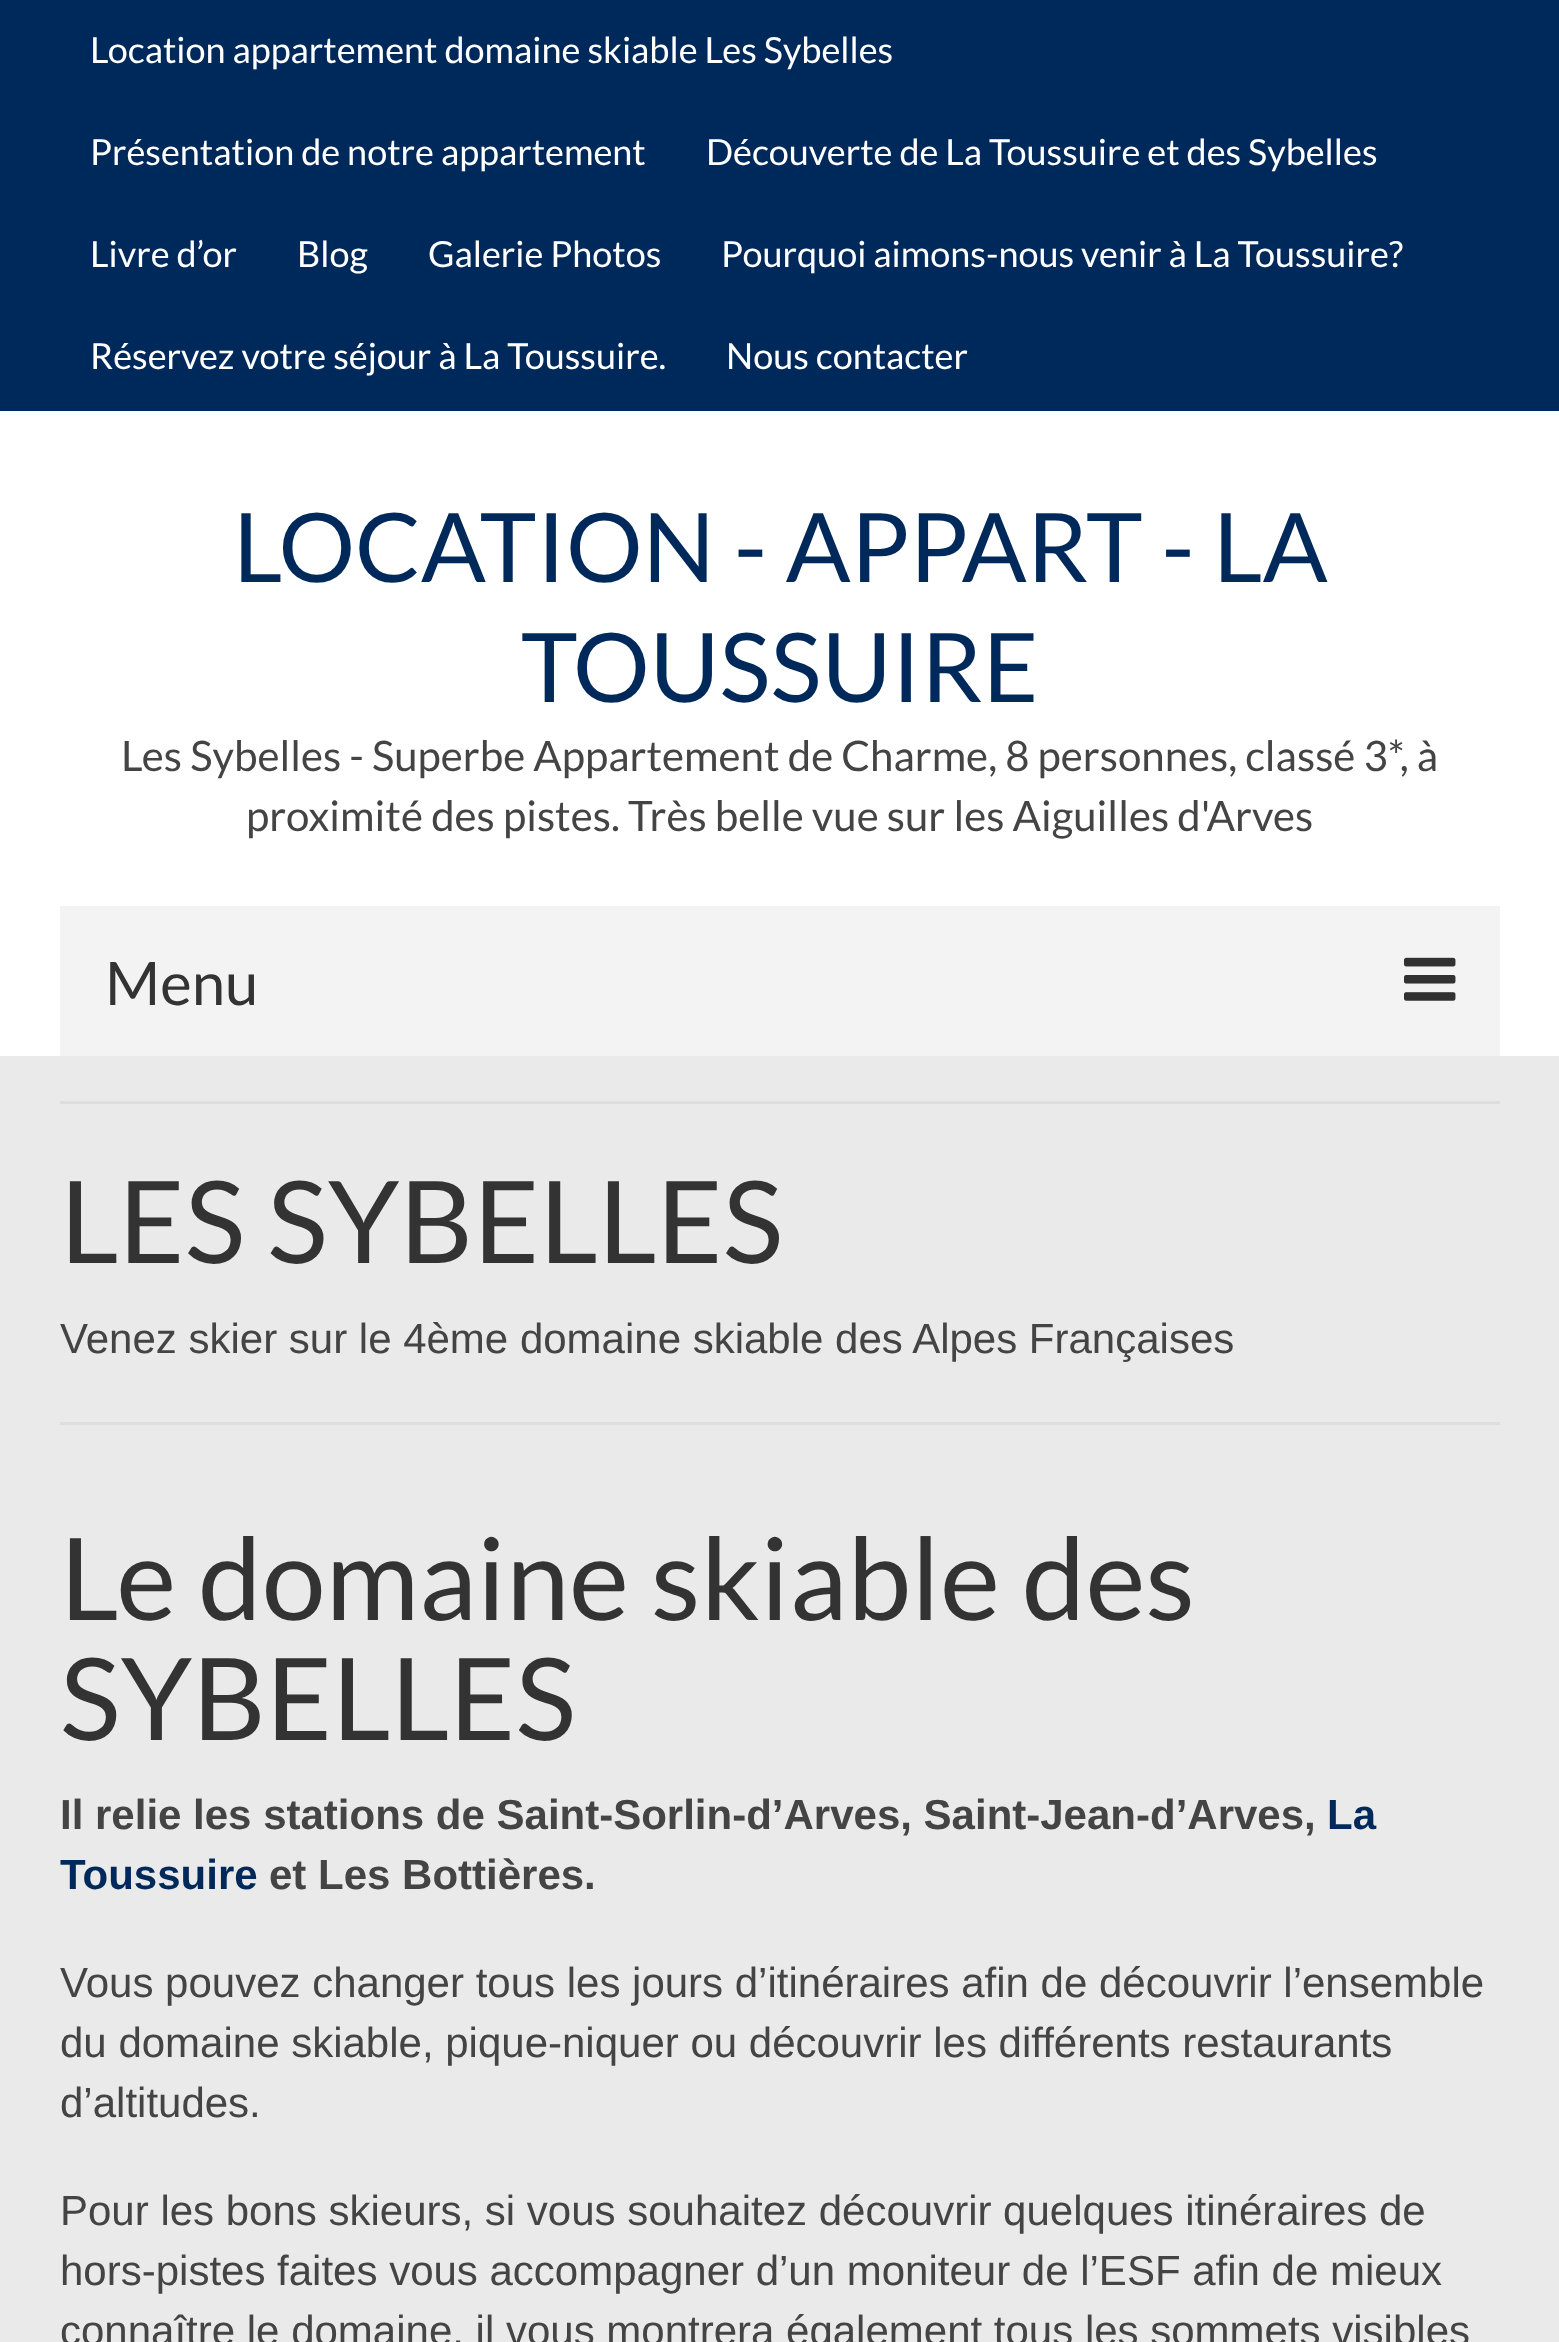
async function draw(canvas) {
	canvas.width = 1559;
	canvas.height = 2342;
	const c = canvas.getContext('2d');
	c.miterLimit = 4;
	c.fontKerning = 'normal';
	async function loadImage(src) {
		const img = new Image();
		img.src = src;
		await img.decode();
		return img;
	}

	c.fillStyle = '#fff';
	c.fillRect(0, 0, 1559, 2342);
	c.fillStyle = '#00295b';
	c.fillRect(0, 0, 1559, 411);
	c.font = '36px Lato';
	c.fillStyle = '#fff';
	for (const [text, x, y] of [
		['Location appartement domaine skiable Les Sybelles', 90, 63],
		['Présentation de notre appartement', 90, 165],
		['Découverte de La Toussuire et des Sybelles', 706, 165],
		['Livre d’or', 90, 267],
		['Blog', 297, 267],
		['Galerie Photos', 428, 267],
		['Pourquoi aimons-nous venir à La Toussuire?', 721, 267],
		['Réservez votre séjour à La Toussuire.', 90, 369],
		['Nous contacter', 726, 369],
	]) {
		c.fillText(text, x, y);
	}
	c.font = '96px Lato';
	c.fillStyle = '#00295b';
	c.fillText('LOCATION - APPART - LA', 233, 582);
	c.fillText('TOUSSUIRE', 521, 702);
	c.font = '42px Lato';
	c.fillStyle = '#444';
	c.fillText('Les Sybelles - Superbe Appartement de Charme, 8 personnes, classé 3*, à', 121, 771);
	c.fillText('proximité des pistes. Très belle vue sur les Aiguilles d\'Arves', 246, 831);
	c.fillStyle = '#f3f3f3';
	c.fillRect(60, 906, 1440, 150);
	c.font = '60px Lato';
	c.fillStyle = '#333';
	c.fillText('Menu', 105, 1005);
	c.drawImage(await loadImage('img1.png'), 1404, 957, 52, 44);
	for (const [x, y, w, h, color] of [
		[0, 1056, 1559, 1286, '#eaeaea'],
		[60, 1101, 1440, 3, '#dedede'],
		[60, 1422, 1440, 3, '#dedede'],
	]) {
		c.fillStyle = color;
		c.fillRect(x, y, w, h);
	}
	c.font = '114px Lato';
	c.fillStyle = '#333';
	c.fillText('LES SYBELLES', 60, 1263);
	c.font = '42px Liberation Sans';
	c.fillStyle = '#444';
	c.fillText('Venez skier sur le 4ème domaine skiable des Alpes Françaises', 60, 1353);
	c.font = '114px Lato';
	c.fillStyle = '#333';
	c.fillText('Le domaine skiable des', 60, 1620);
	c.fillText('SYBELLES', 60, 1740);
	c.font = 'bold 42px Liberation Sans';
	c.fillStyle = '#444';
	c.fillText('Il relie les stations de Saint-Sorlin-d’Arves, Saint-Jean-d’Arves,', 60, 1829);
	c.fillStyle = '#00295b';
	c.fillText('La', 1327, 1829);
	c.fillText('Toussuire', 60, 1889);
	c.fillStyle = '#444';
	c.fillText('et Les Bottières.', 269, 1889);
	c.font = '42px Liberation Sans';
	for (const [text, x, y] of [
		['Vous pouvez changer tous les jours d’itinéraires afin de découvrir l’ensemble', 60, 1997],
		['du domaine skiable, pique-niquer ou découvrir les différents restaurants', 60, 2057],
		['d’altitudes.', 60, 2117],
		['Pour les bons skieurs, si vous souhaitez découvrir quelques itinéraires de', 60, 2225],
		['hors-pistes faites vous accompagner d’un moniteur de l’ESF afin de mieux', 60, 2285],
		['connaître le domaine, il vous montrera également tous les sommets visibles', 60, 2345],
	]) {
		c.fillText(text, x, y);
	}
}

draw(document.querySelector('canvas'));
